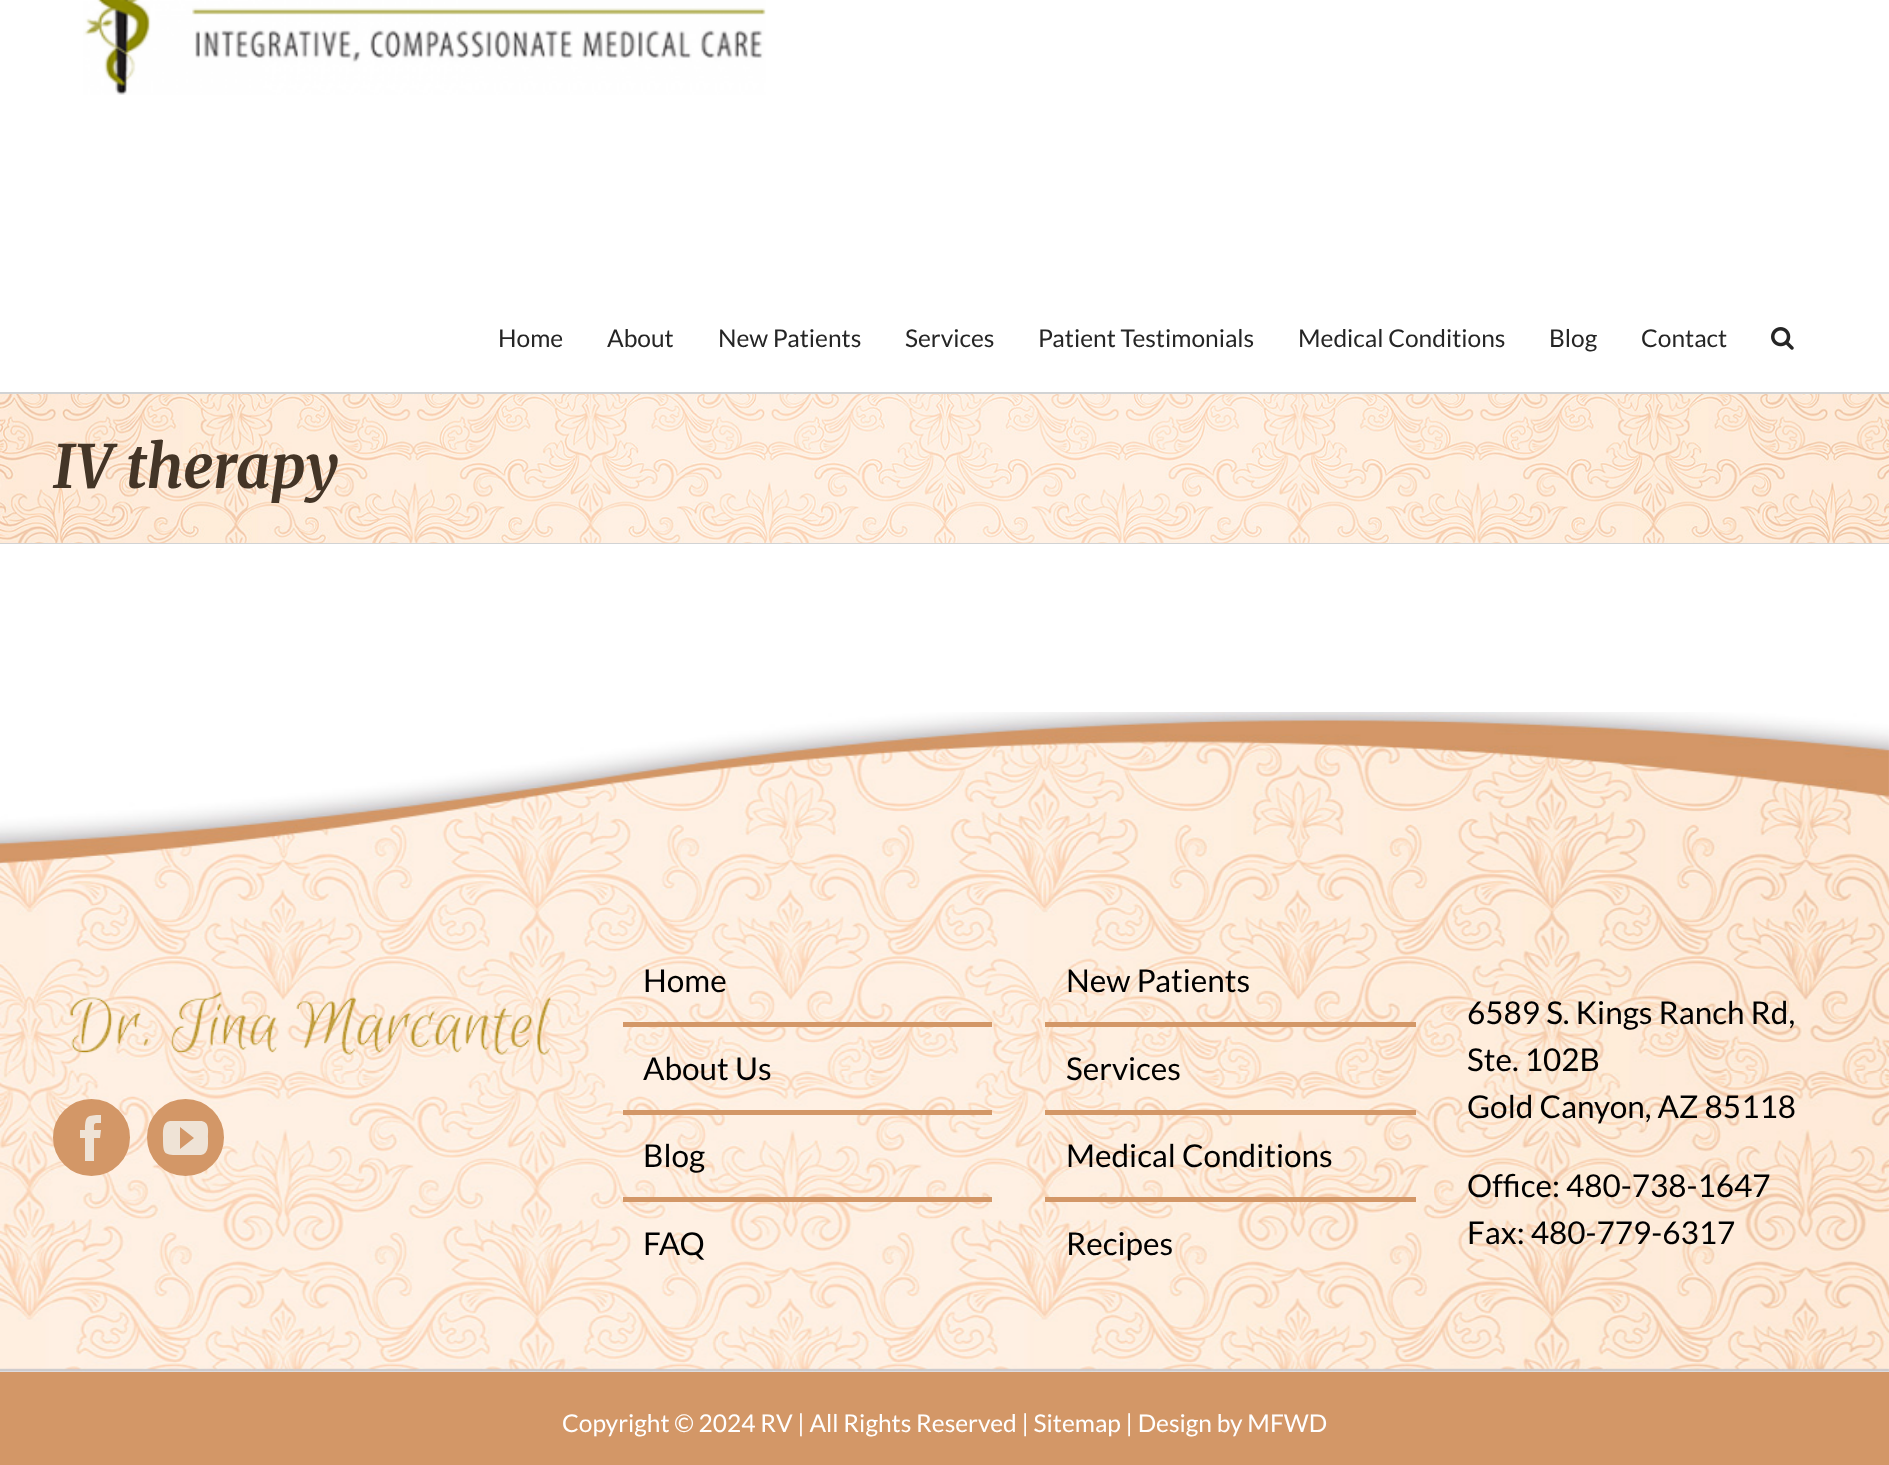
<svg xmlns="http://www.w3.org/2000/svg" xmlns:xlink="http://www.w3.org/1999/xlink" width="1889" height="1465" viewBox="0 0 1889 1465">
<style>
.cls-1{font:24.5px Lato;fill:#252525}
.cls-2{font:italic 300 59.5px Merriweather;fill:#443527}
.cls-3{font:31.5px Lato;fill:#000000}
.cls-4{font:24.5px Lato;fill:#ffffff}
</style>
<rect width="100%" height="100%" fill="#ffffff"/>
<image xlink:href="image0.png" x="83" y="0" width="683" height="95"/>
<image xlink:href="image1.png" x="1771" y="327" width="23" height="23"/>
<image xlink:href="image2.png" x="0" y="394" width="1889" height="149"/>
<rect fill="#d2d3d4" x="0" y="392" width="1889" height="2"/>
<rect fill="#d2d3d4" x="0" y="543" width="1889" height="1"/>
<image xlink:href="image3.png" x="0" y="712" width="1889" height="660"/>
<image xlink:href="image4.png" x="70" y="992" width="481" height="63"/>
<circle fill="#d39767" stroke="#d39767" stroke-width="2" cx="91.5" cy="1137.5" r="37.5"/>
<path fill="#efe3d6" d="M94 1161H85V1138H80V1130H85C85 1116 87 1115 101 1115V1123C93 1123 94 1123 94 1130H101L100 1138H94Z"/>
<circle fill="#d39767" stroke="#d39767" stroke-width="2" cx="185.5" cy="1137.5" r="37.5"/>
<path fill="#efe3d6" d="M200 1121H170C162 1122 163 1132 163 1138C163 1155 164 1155 181 1155H201C209 1154 208 1144 208 1138C208 1131 210 1121 200 1121ZM180 1149V1127L194 1138Z"/>
<rect fill="#d39767" x="623" y="1022" width="369" height="5"/>
<rect fill="#d39767" x="623" y="1110" width="369" height="5"/>
<rect fill="#d39767" x="623" y="1197" width="369" height="5"/>
<rect fill="#d39767" x="1045" y="1022" width="371" height="5"/>
<rect fill="#d39767" x="1045" y="1110" width="371" height="5"/>
<rect fill="#d39767" x="1045" y="1197" width="371" height="5"/>
<rect fill="#d39767" x="0" y="1372" width="1889" height="93"/>
<text class="cls-1" x="498" y="347">Home</text>
<text class="cls-1" x="607" y="347">About</text>
<text class="cls-1" x="718" y="347">New Patients</text>
<text class="cls-1" x="905" y="347">Services</text>
<text class="cls-1" x="1038" y="347">Patient Testimonials</text>
<text class="cls-1" x="1298" y="347">Medical Conditions</text>
<text class="cls-1" x="1549" y="347">Blog</text>
<text class="cls-1" x="1641" y="347">Contact</text>
<text class="cls-2" x="53" y="488">IV therapy</text>
<text class="cls-3" x="643" y="992">Home</text>
<text class="cls-3" x="643" y="1080">About Us</text>
<text class="cls-3" x="643" y="1167">Blog</text>
<text class="cls-3" x="643" y="1255">FAQ</text>
<text class="cls-3" x="1066" y="992">New Patients</text>
<text class="cls-3" x="1066" y="1080">Services</text>
<text class="cls-3" x="1066" y="1167">Medical Conditions</text>
<text class="cls-3" x="1066" y="1255">Recipes</text>
<text class="cls-3"><tspan x="1467" y="1024">6589 S. Kings Ranch Rd,</tspan><tspan x="1467" y="1071">Ste. 102B</tspan><tspan x="1467" y="1118">Gold Canyon, AZ 85118</tspan></text>
<text class="cls-3"><tspan x="1467" y="1197">Office: 480-738-1647</tspan><tspan x="1467" y="1244">Fax: 480-779-6317</tspan></text>
<text class="cls-4" x="562" y="1432">Copyright © 2024 RV | All Rights Reserved | Sitemap | Design by MFWD</text>
</svg>
